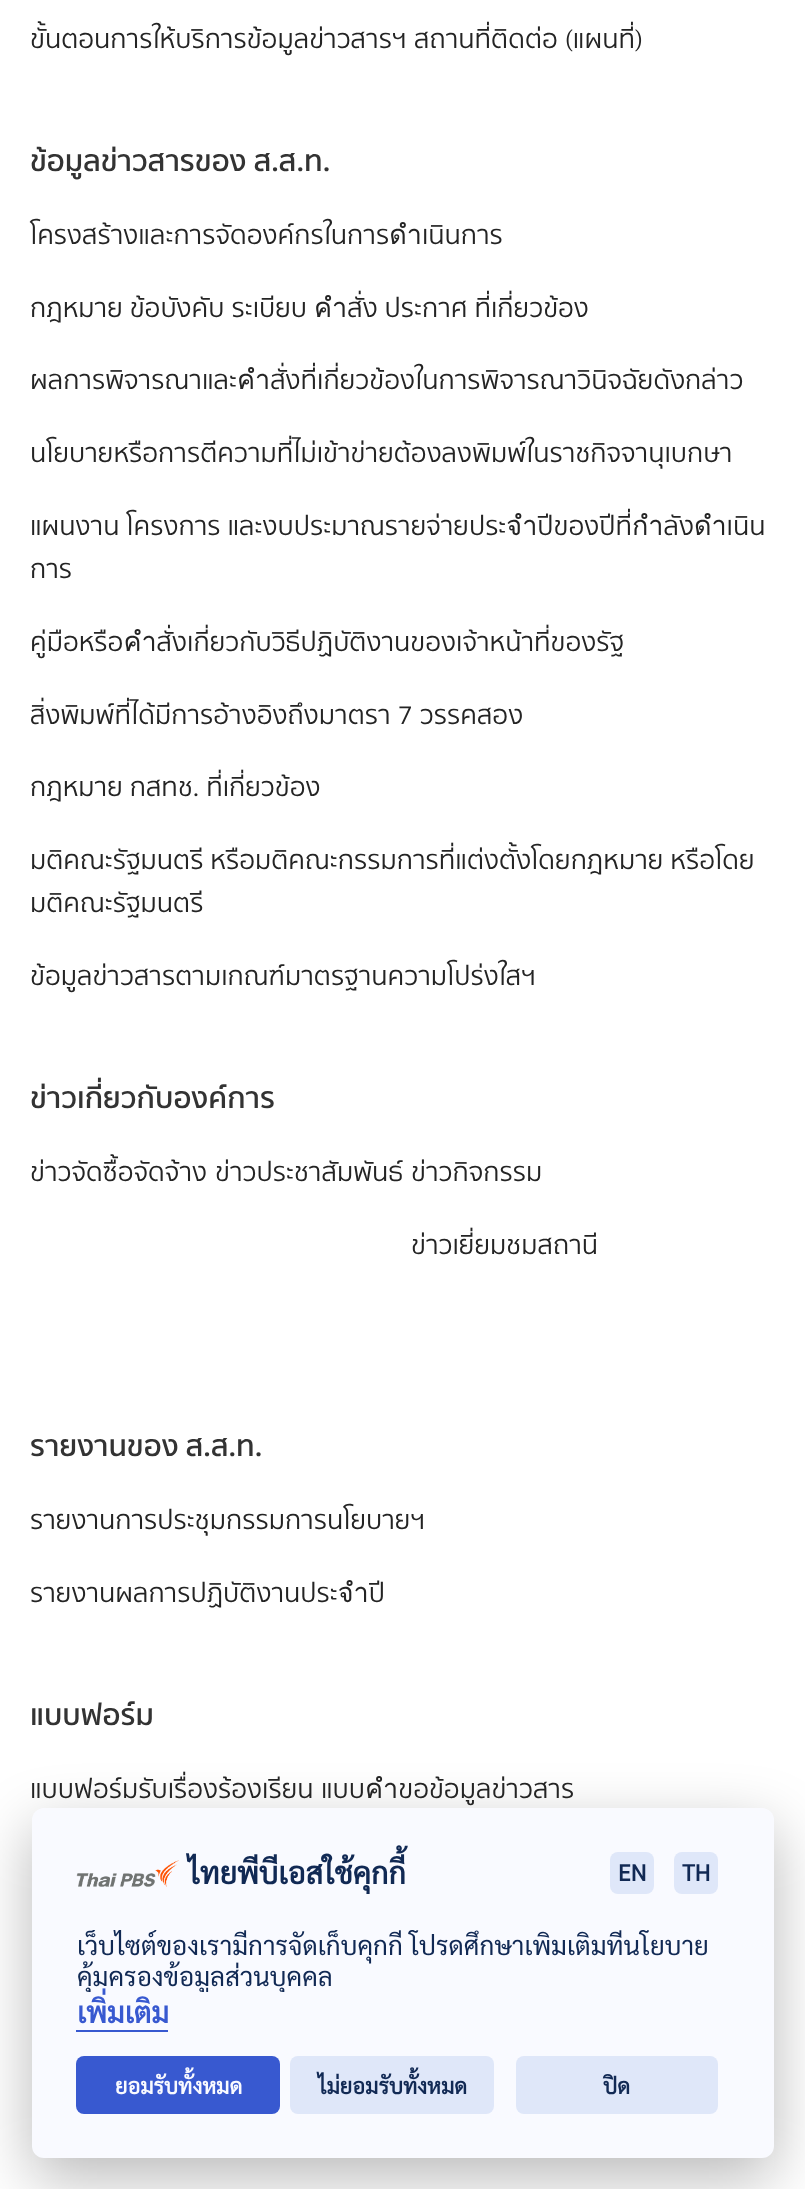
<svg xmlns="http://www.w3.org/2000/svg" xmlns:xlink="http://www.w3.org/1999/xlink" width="805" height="2189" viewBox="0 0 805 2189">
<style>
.cls-1{font:27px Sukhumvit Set;fill:#242424}
.cls-2{font:600 30px Sukhumvit Set;fill:#333333}
.cls-3{font:bold 30.25px Sarabun;fill:#112954}
.cls-4{font:bold 23px Sarabun;fill:#112954}
.cls-5{font:25.9px Sarabun;fill:#112954}
.cls-6{font:bold 29px Sarabun;fill:#3859d0}
.cls-7{font:bold 21.75px Sarabun;fill:#f9faff}
.cls-8{font:bold 21.75px Sarabun;fill:#112954}
</style>
<defs>
<clipPath id="clip1"><rect x="76" y="1930" width="654" height="62"/></clipPath>
</defs>
<rect width="100%" height="100%" fill="#ffffff"/>
<rect fill="#020203" fill-opacity="0.28" filter="blur(30px)" x="32" y="1828" width="742" height="350" rx="12"/>
<rect fill="#f9faff" x="32" y="1808" width="742" height="350" rx="12"/>
<image xlink:href="image0.png" x="76" y="1860" width="103" height="27"/>
<rect fill="#dfe7f9" x="610" y="1852" width="44" height="42" rx="8"/>
<rect fill="#dfe7f9" x="674" y="1852" width="44" height="42" rx="8"/>
<rect fill="#3859d0" x="76" y="2030" width="92" height="2"/>
<rect fill="#3859d0" x="76" y="2056" width="204" height="58" rx="8"/>
<rect fill="#dfe7f9" x="290" y="2056" width="204" height="58" rx="8"/>
<rect fill="#dfe7f9" x="516" y="2056" width="202" height="58" rx="8"/>
<text class="cls-1" x="30" y="48">ขั้นตอนการให้บริการข้อมูลข่าวสารฯ</text>
<text class="cls-1" x="414" y="48">สถานที่ติดต่อ (แผนที่)</text>
<text class="cls-2" x="30" y="171">ข้อมูลข่าวสารของ ส.ส.ท.</text>
<text class="cls-1" x="30" y="244">โครงสร้างและการจัดองค์กรในการดำเนินการ</text>
<text class="cls-1" x="30" y="317">กฎหมาย ข้อบังคับ ระเบียบ คำสั่ง ประกาศ ที่เกี่ยวข้อง</text>
<text class="cls-1" x="30" y="389">ผลการพิจารณาและคำสั่งที่เกี่ยวข้องในการพิจารณาวินิจฉัยดังกล่าว</text>
<text class="cls-1" x="30" y="462">นโยบายหรือการตีความที่ไม่เข้าข่ายต้องลงพิมพ์ในราชกิจจานุเบกษา</text>
<text class="cls-1"><tspan x="30" y="535">แผนงาน โครงการ และงบประมาณรายจ่ายประจำปีของปีที่กำลังดำเนิน</tspan><tspan x="30" y="578">การ</tspan></text>
<text class="cls-1" x="30" y="651">คู่มือหรือคำสั่งเกี่ยวกับวิธีปฏิบัติงานของเจ้าหน้าที่ของรัฐ</text>
<text class="cls-1" x="30" y="724">สิ่งพิมพ์ที่ได้มีการอ้างอิงถึงมาตรา 7 วรรคสอง</text>
<text class="cls-1" x="30" y="796">กฎหมาย กสทช. ที่เกี่ยวข้อง</text>
<text class="cls-1"><tspan x="30" y="869">มติคณะรัฐมนตรี หรือมติคณะกรรมการที่แต่งตั้งโดยกฎหมาย หรือโดย</tspan><tspan x="30" y="912">มติคณะรัฐมนตรี</tspan></text>
<text class="cls-1" x="30" y="985">ข้อมูลข่าวสารตามเกณฑ์มาตรฐานความโปร่งใสฯ</text>
<text class="cls-2" x="30" y="1108">ข่าวเกี่ยวกับองค์การ</text>
<text class="cls-1" x="30" y="1181">ข่าวจัดซื้อจัดจ้าง</text>
<text class="cls-1" x="215" y="1181">ข่าวประชาสัมพันธ์</text>
<text class="cls-1" x="411" y="1181">ข่าวกิจกรรม</text>
<text class="cls-1" x="411" y="1254">ข่าวเยี่ยมชมสถานี</text>
<text class="cls-2" x="30" y="1456">รายงานของ ส.ส.ท.</text>
<text class="cls-1" x="30" y="1529">รายงานการประชุมกรรมการนโยบายฯ</text>
<text class="cls-1" x="30" y="1602">รายงานผลการปฏิบัติงานประจำปี</text>
<text class="cls-2" x="30" y="1725">แบบฟอร์ม</text>
<text class="cls-1" x="30" y="1798">แบบฟอร์มรับเรื่องร้องเรียน</text>
<text class="cls-1" x="321" y="1798">แบบคำขอข้อมูลข่าวสาร</text>
<text class="cls-3" x="188" y="1884">ไทยพีบีเอสใช้คุกกี้</text>
<text class="cls-4" x="618" y="1881">EN</text>
<text class="cls-4" x="682" y="1881">TH</text>
<g clip-path="url(#clip1)">
<text class="cls-5"><tspan x="77" y="1955">เว็บไซต์ของเรามีการจัดเก็บคุกกี้ โปรดศึกษาเพิ่มเติมที่นโยบาย</tspan><tspan x="77" y="1986">คุ้มครองข้อมูลส่วนบุคคล</tspan></text>
</g>
<text class="cls-6" x="77" y="2023">เพิ่มเติม</text>
<text class="cls-7" x="115" y="2094">ยอมรับทั้งหมด</text>
<text class="cls-8" x="318" y="2094">ไม่ยอมรับทั้งหมด</text>
<text class="cls-8" x="603" y="2094">ปิด</text>
</svg>
